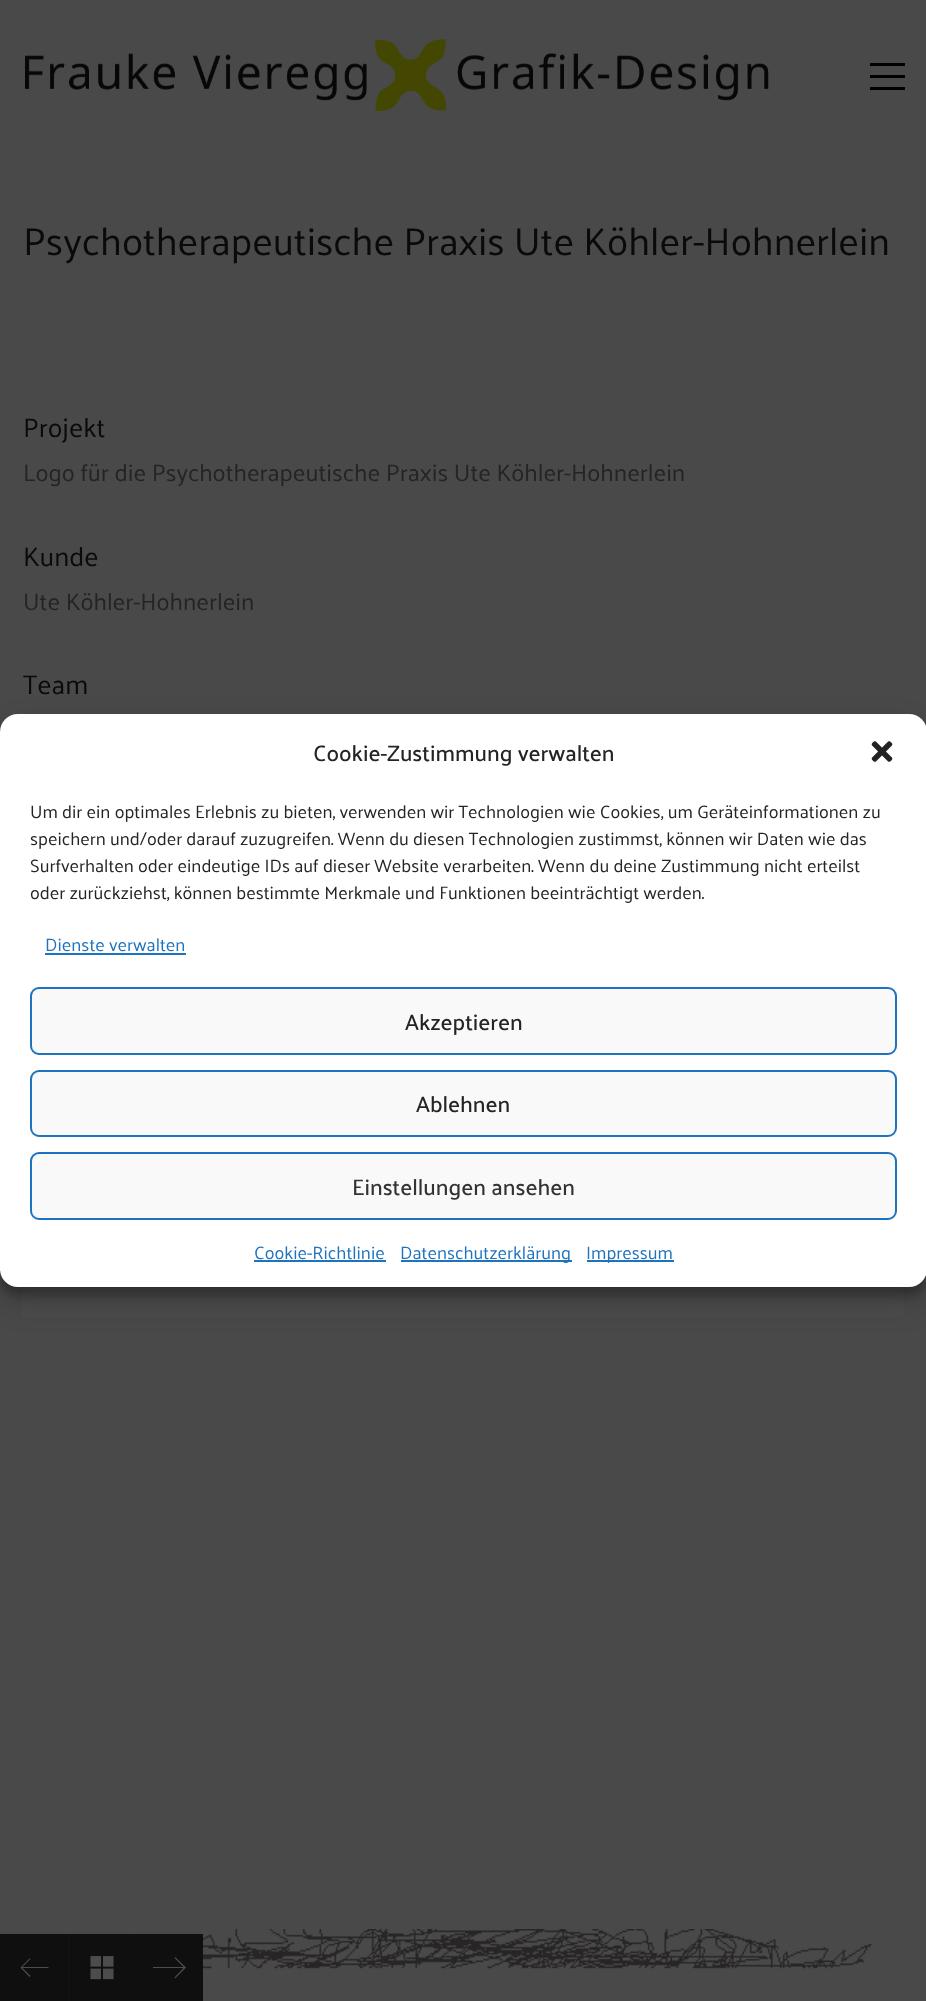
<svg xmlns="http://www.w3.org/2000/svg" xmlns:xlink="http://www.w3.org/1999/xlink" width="926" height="2001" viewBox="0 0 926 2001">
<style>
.cls-1{font:39px Palanquin;fill:#0a0a0a}
.cls-2{font:27px Palanquin;fill:#0a0a0a}
.cls-3{font:24px Palanquin;fill:#242424}
.cls-4{font:500 22.5px Palanquin;fill:#242424}
.cls-5{font:18px Palanquin;fill:#242424}
.cls-6{font:18px Palanquin;fill:#1e73be}
.cls-7{font:500 22.5px Palanquin;fill:#333333}
</style>
<rect width="100%" height="100%" fill="#494949"/>
<image xlink:href="image0.png" x="25" y="39" width="744" height="72"/>
<rect fill="#000000" x="870" y="63" width="35" height="3"/>
<rect fill="#000000" x="870" y="75" width="35" height="3"/>
<rect fill="#000000" x="870" y="87" width="35" height="3"/>
<image xlink:href="image1.png" x="22" y="1287" width="882" height="30"/>
<rect fill="#0f0f0f" x="0" y="1934" width="68" height="67"/>
<path fill="#4d4d4d" d="M48.5 1967H22.5L30.5 1959L29.5 1958.5L20.5 1967.5L29.5 1977L30.5 1976L22.5 1968H48.5Z"/>
<rect fill="#0f0f0f" x="70" y="1934" width="64" height="67"/>
<rect fill="#111111" x="134" y="1934" width="1" height="67"/>
<rect fill="#111111" x="68" y="1934" width="2" height="67"/>
<image xlink:href="image2.png" x="90" y="1956" width="24" height="24"/>
<rect fill="#0f0f0f" x="135" y="1934" width="68" height="67"/>
<path fill="#4d4d4d" d="M175 1957L174.5 1958L183.5 1967H153V1968H183.5L174.5 1977.5L175 1978.5L186 1967.5Z"/>
<rect fill="#000000" fill-opacity="0.23" filter="blur(4.5px)" x="0" y="723" width="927" height="573" rx="18"/>
<rect fill="#000000" fill-opacity="0.19" filter="blur(15px)" x="0" y="729" width="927" height="573" rx="18"/>
<rect fill="#ffffff" x="0" y="714" width="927" height="573" rx="18"/>
<image xlink:href="image3.png" x="871" y="741" width="22" height="21"/>
<rect fill="#1e73be" x="45" y="953" width="141" height="2"/>
<rect fill="#f9f9f9" stroke="#1e73be" stroke-width="2" x="31" y="988" width="865" height="66" rx="8"/>
<rect fill="#f9f9f9" stroke="#1e73be" stroke-width="2" x="31" y="1071" width="865" height="65" rx="8"/>
<rect fill="#f9f9f9" stroke="#1e73be" stroke-width="2" x="31" y="1153" width="865" height="66" rx="8"/>
<rect fill="#1e73be" x="254" y="1260" width="132" height="2"/>
<rect fill="#1e73be" x="401" y="1260" width="171" height="2"/>
<rect fill="#1e73be" x="587" y="1260" width="87" height="2"/>
<image xlink:href="image4.png" x="203" y="1929" width="669" height="40"/>
<text class="cls-1" x="23" y="255">Psychotherapeutische Praxis Ute Köhler-Hohnerlein</text>
<text class="cls-2" x="23" y="437">Projekt</text>
<text class="cls-3" x="23" y="481">Logo für die Psychotherapeutische Praxis Ute Köhler-Hohnerlein</text>
<text class="cls-2" x="23" y="566">Kunde</text>
<text class="cls-3" x="23" y="610">Ute Köhler-Hohnerlein</text>
<text class="cls-2" x="23" y="694">Team</text>
<text class="cls-4" x="313" y="761">Cookie-Zustimmung verwalten</text>
<text class="cls-5"><tspan x="30" y="818">Um dir ein optimales Erlebnis zu bieten, verwenden wir Technologien wie Cookies, um Geräteinformationen zu</tspan><tspan x="30" y="845">speichern und/oder darauf zuzugreifen. Wenn du diesen Technologien zustimmst, können wir Daten wie das</tspan><tspan x="30" y="872">Surfverhalten oder eindeutige IDs auf dieser Website verarbeiten. Wenn du deine Zustimmung nicht erteilst</tspan><tspan x="30" y="899">oder zurückziehst, können bestimmte Merkmale und Funktionen beeinträchtigt werden.</tspan></text>
<text class="cls-6" x="45" y="951">Dienste verwalten</text>
<text class="cls-4" x="405" y="1030">Akzeptieren</text>
<text class="cls-4" x="416" y="1112">Ablehnen</text>
<text class="cls-7" x="352" y="1195">Einstellungen ansehen</text>
<text class="cls-6" x="254" y="1259">Cookie-Richtlinie</text>
<text class="cls-6" x="400" y="1259">Datenschutzerklärung</text>
<text class="cls-6" x="586" y="1259">Impressum</text>
</svg>
